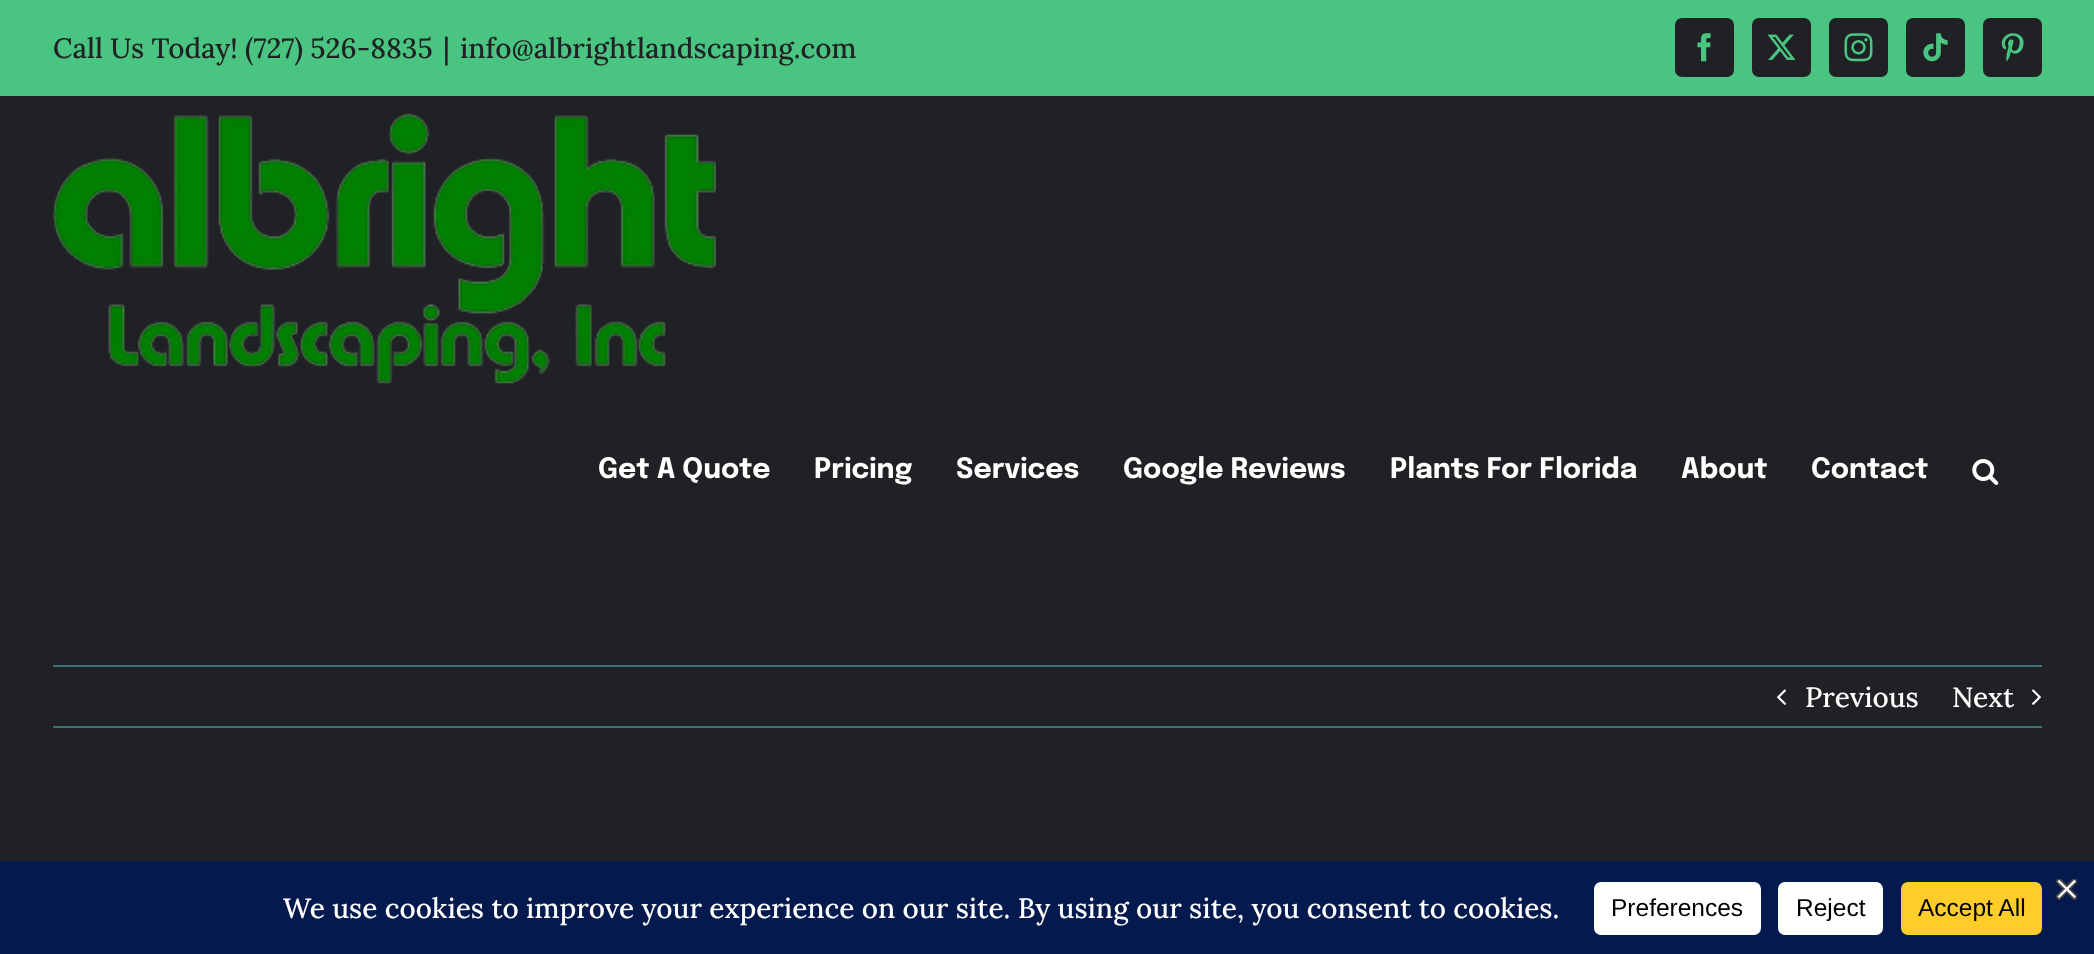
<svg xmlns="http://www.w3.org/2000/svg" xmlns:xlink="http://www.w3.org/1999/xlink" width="2094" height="954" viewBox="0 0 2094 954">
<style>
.cls-1{font:500 28px Lora;fill:#1f2124}
.cls-2{font:bold 28px Epilogue;fill:#ffffff}
.cls-3{font:500 28px Lora;fill:#ffffff}
.cls-4{font:24.5px Liberation Sans;fill:#000000}
</style>
<rect width="100%" height="100%" fill="#1f2124"/>
<rect fill="#4ac481" x="0" y="0" width="2094" height="96"/>
<rect fill="#1f2124" stroke="#1f2124" stroke-width="2" x="1676" y="19" width="57" height="57" rx="6"/>
<image xlink:href="image0.png" x="1697" y="33" width="14" height="29"/>
<rect fill="#1f2124" stroke="#1f2124" stroke-width="2" x="1753" y="19" width="57" height="57" rx="6"/>
<image xlink:href="image1.png" x="1767" y="34" width="29" height="26"/>
<rect fill="#1f2124" stroke="#1f2124" stroke-width="2" x="1830" y="19" width="57" height="57" rx="6"/>
<image xlink:href="image2.png" x="1844" y="33" width="29" height="29"/>
<rect fill="#1f2124" stroke="#1f2124" stroke-width="2" x="1907" y="19" width="57" height="57" rx="6"/>
<image xlink:href="image3.png" x="1923" y="33" width="25" height="29"/>
<rect fill="#1f2124" stroke="#1f2124" stroke-width="2" x="1984" y="19" width="57" height="57" rx="6"/>
<image xlink:href="image4.png" x="2001" y="33" width="23" height="29"/>
<image xlink:href="image5.png" x="52" y="113" width="664" height="271"/>
<image xlink:href="image6.png" x="1972" y="459" width="27" height="26"/>
<rect fill="#407075" x="53" y="665" width="1989" height="2"/>
<rect fill="#407075" x="53" y="726" width="1989" height="2"/>
<image xlink:href="image7.png" x="1777" y="689" width="9" height="16"/>
<image xlink:href="image8.png" x="2032" y="689" width="9" height="16"/>
<rect fill="#04194e" x="0" y="861" width="2094" height="93"/>
<image xlink:href="image9.png" x="2056" y="879" width="21" height="21"/>
<rect fill="#ffffff" x="1594" y="882" width="167" height="53" rx="7"/>
<rect fill="#ffffff" x="1778" y="882" width="105" height="53" rx="7"/>
<rect fill="#ffcd2a" x="1901" y="882" width="141" height="53" rx="7"/>
<text class="cls-1" x="53" y="58">Call Us Today! (727) 526-8835</text>
<text class="cls-1" x="443" y="58">|</text>
<text class="cls-1" x="460" y="58">info@albrightlandscaping.com</text>
<text class="cls-2" x="598" y="478">Get A Quote</text>
<text class="cls-2" x="814" y="478">Pricing</text>
<text class="cls-2" x="956" y="478">Services</text>
<text class="cls-2" x="1123" y="478">Google Reviews</text>
<text class="cls-2" x="1390" y="478">Plants For Florida</text>
<text class="cls-2" x="1681" y="478">About</text>
<text class="cls-2" x="1811" y="478">Contact</text>
<text class="cls-3" x="1805" y="707">Previous</text>
<text class="cls-3" x="1952" y="707">Next</text>
<text class="cls-3" x="283" y="918">We use cookies to improve your experience on our site. By using our site, you consent to cookies.</text>
<text class="cls-4" x="1611" y="916">Preferences</text>
<text class="cls-4" x="1796" y="916">Reject</text>
<text class="cls-4" x="1918" y="916">Accept All</text>
</svg>
